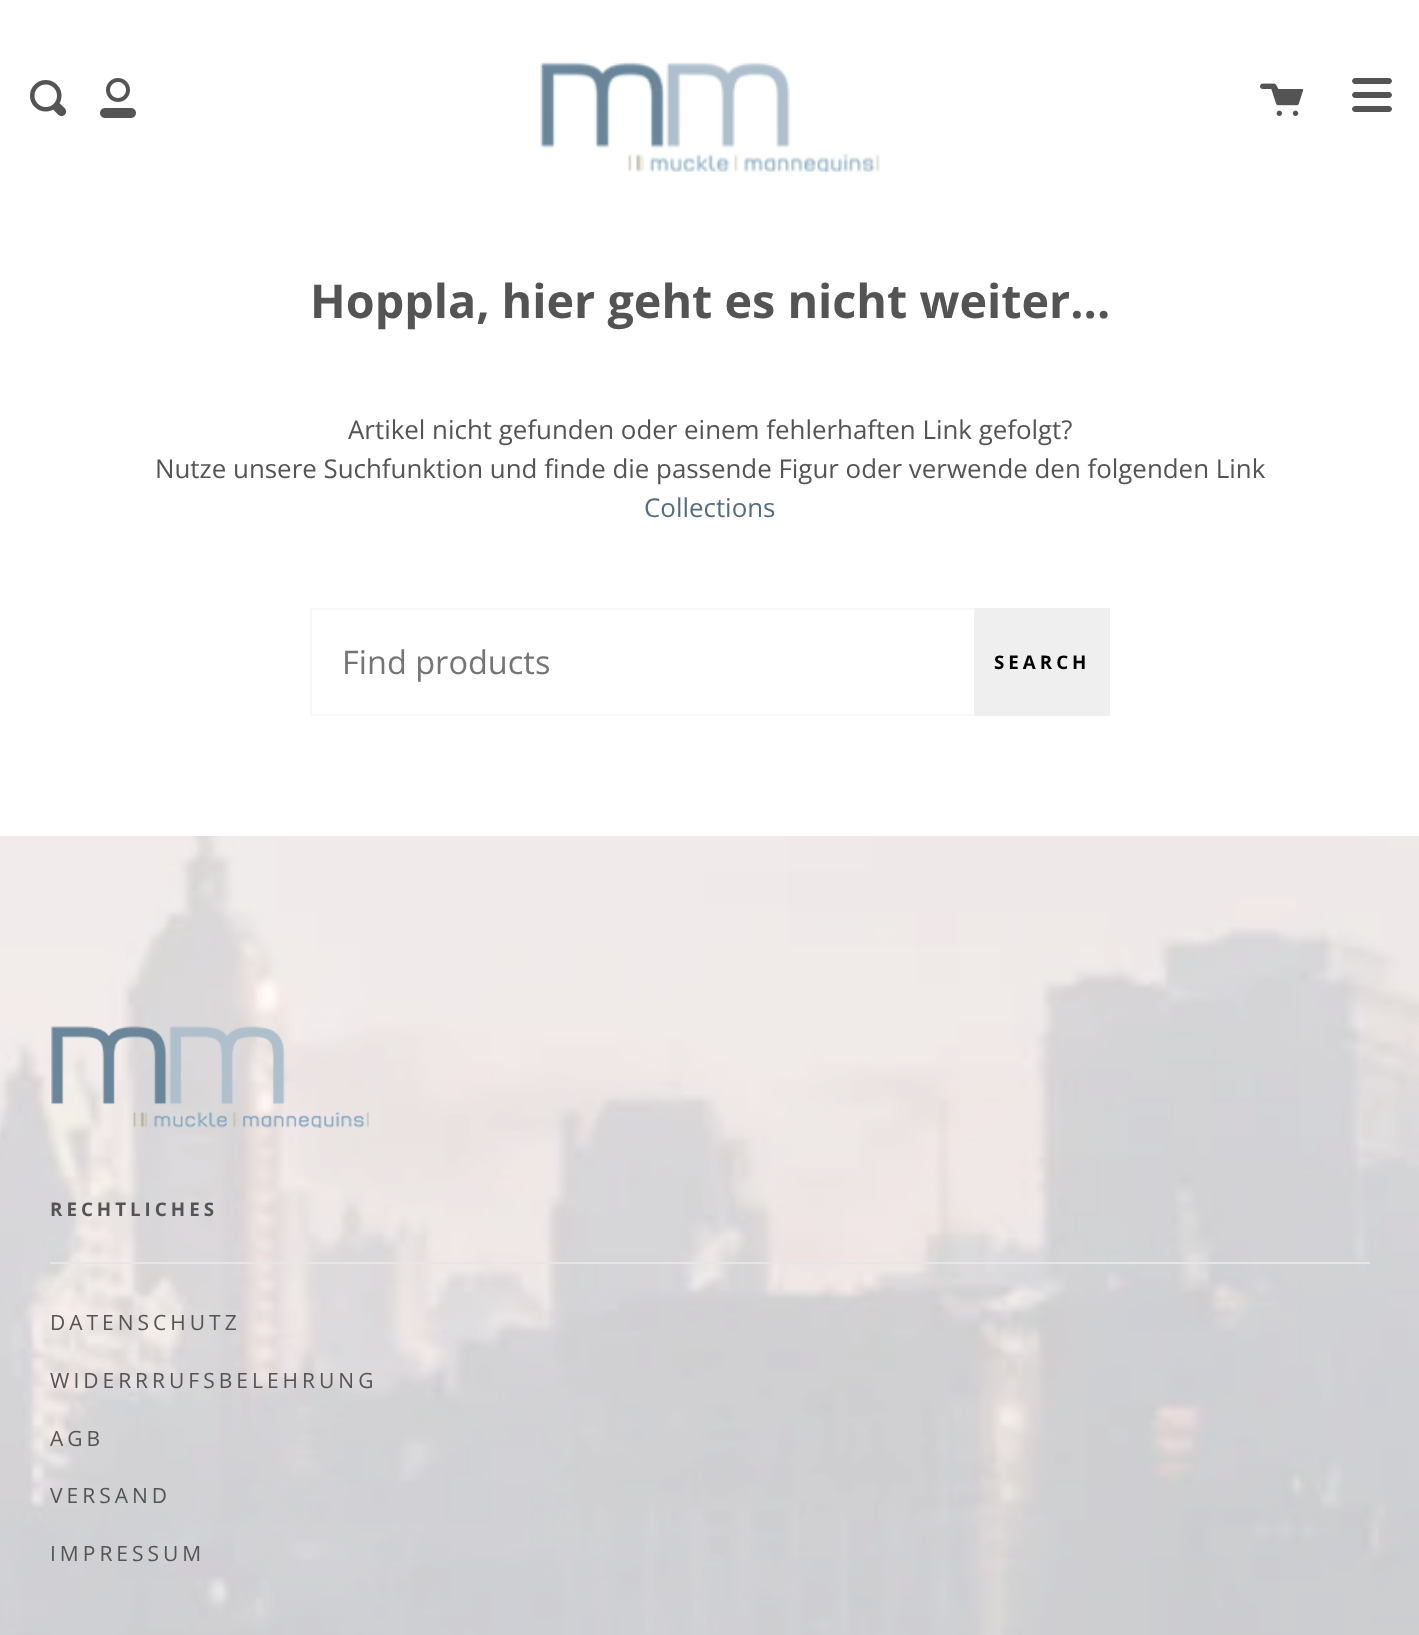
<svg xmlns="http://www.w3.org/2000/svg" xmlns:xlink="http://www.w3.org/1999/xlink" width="1419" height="1635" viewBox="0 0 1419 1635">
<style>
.cls-1{font:bold 46.7px Open Sans;fill:#545454}
.cls-2{font:25.9px Open Sans;fill:#545454}
.cls-3{font:25.9px Open Sans;fill:#556c7e}
.cls-4{font:32.5px Open Sans;fill:#757575}
.cls-5{font:bold 18.75px Open Sans;letter-spacing:4px;fill:#000000}
.cls-6{font:bold 18.75px Open Sans;letter-spacing:4px;fill:#545454}
.cls-7{font:21px Open Sans;letter-spacing:4px;fill:#545454}
</style>
<rect width="100%" height="100%" fill="#ffffff"/>
<image xlink:href="image0.png" x="540" y="61" width="340" height="111"/>
<image xlink:href="image1.png" x="30" y="80" width="37" height="37"/>
<image xlink:href="image2.png" x="100" y="78" width="36" height="40"/>
<image xlink:href="image3.png" x="1260" y="83" width="44" height="33"/>
<path fill="#545454" d="M1355 78H1386V84H1355C1353.5 84 1352 82.5 1352 81C1352 79.5 1353.5 78 1355 78Z"/>
<path fill="#545454" d="M1358 78H1389C1390.5 78 1392 79.5 1392 81C1392 82.5 1390.5 84 1389 84H1358Z"/>
<path fill="#545454" d="M1355 92H1386V98H1355C1353.5 98 1352 96.5 1352 95C1352 93.5 1353.5 92 1355 92Z"/>
<path fill="#545454" d="M1358 92H1389C1390.5 92 1392 93.5 1392 95C1392 96.5 1390.5 98 1389 98H1358Z"/>
<path fill="#545454" d="M1355 106H1386V112H1355C1353.5 112 1352 110.5 1352 109C1352 107.5 1353.5 106 1355 106Z"/>
<path fill="#545454" d="M1358 106H1389C1390.5 106 1392 107.5 1392 109C1392 110.5 1390.5 112 1389 112H1358Z"/>
<rect fill="none" stroke="#f7f7f7" stroke-width="2" x="311" y="609" width="798" height="106"/>
<rect fill="#efefef" x="974" y="608" width="136" height="108"/>
<image xlink:href="image4.png" x="0" y="836" width="1419" height="799"/>
<image xlink:href="image5.png" x="51" y="1026" width="318" height="102"/>
<rect fill="#e6e6e6" x="50" y="1262" width="1320" height="2"/>
<text class="cls-1" x="310" y="318">Hoppla, hier geht es nicht weiter...</text>
<text class="cls-2" x="348" y="439">Artikel nicht gefunden oder einem fehlerhaften Link gefolgt?</text>
<text class="cls-2" x="155" y="478">Nutze unsere Suchfunktion und finde die passende Figur oder verwende den folgenden Link</text>
<text class="cls-3" x="644" y="517">Collections</text>
<text class="cls-4" x="342" y="674">Find products</text>
<text class="cls-5" x="994" y="669">SEARCH</text>
<text class="cls-6" x="50" y="1216">RECHTLICHES</text>
<text class="cls-7" x="50" y="1330">DATENSCHUTZ</text>
<text class="cls-7" x="50" y="1388">WIDERRRUFSBELEHRUNG</text>
<text class="cls-7" x="50" y="1446">AGB</text>
<text class="cls-7" x="50" y="1503">VERSAND</text>
<text class="cls-7" x="50" y="1561">IMPRESSUM</text>
</svg>
